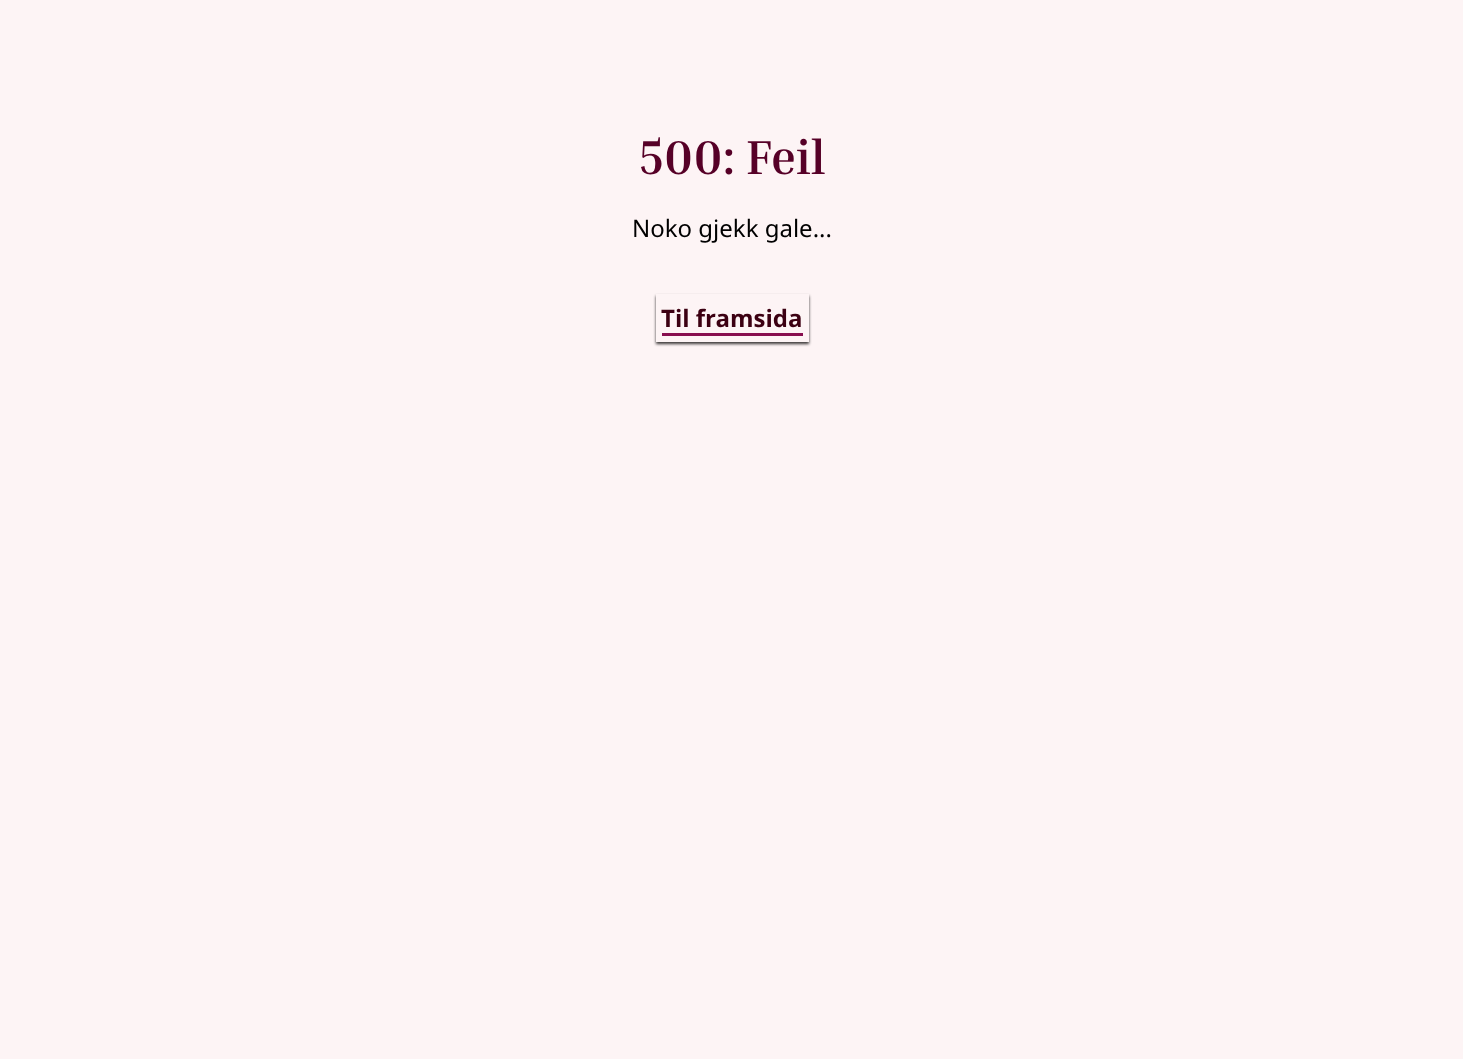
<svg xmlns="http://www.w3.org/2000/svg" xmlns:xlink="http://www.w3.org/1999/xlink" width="1463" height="1059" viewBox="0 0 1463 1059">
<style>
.cls-1{font:bold 48px Inria Serif;fill:#560027}
.cls-2{font:24px Noto Sans;fill:#000000}
.cls-3{font:bold 24px Noto Sans;fill:#3c0012}
</style>
<defs>
<clipPath id="clip1"><path d="M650 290H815V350H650ZM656 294H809V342H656Z" clip-rule="evenodd"/></clipPath>
</defs>
<rect width="100%" height="100%" fill="#fdf4f5"/>
<g clip-path="url(#clip1)">
<rect fill="#373434" filter="blur(1.5px)" x="656" y="296" width="153" height="48"/>
</g>
<rect fill="#880e4f" x="662" y="333" width="141" height="3"/>
<text class="cls-1" x="639" y="174">500: Feil</text>
<text class="cls-2" x="632" y="237">Noko gjekk gale...</text>
<text class="cls-3" x="661" y="327">Til framsida</text>
</svg>
